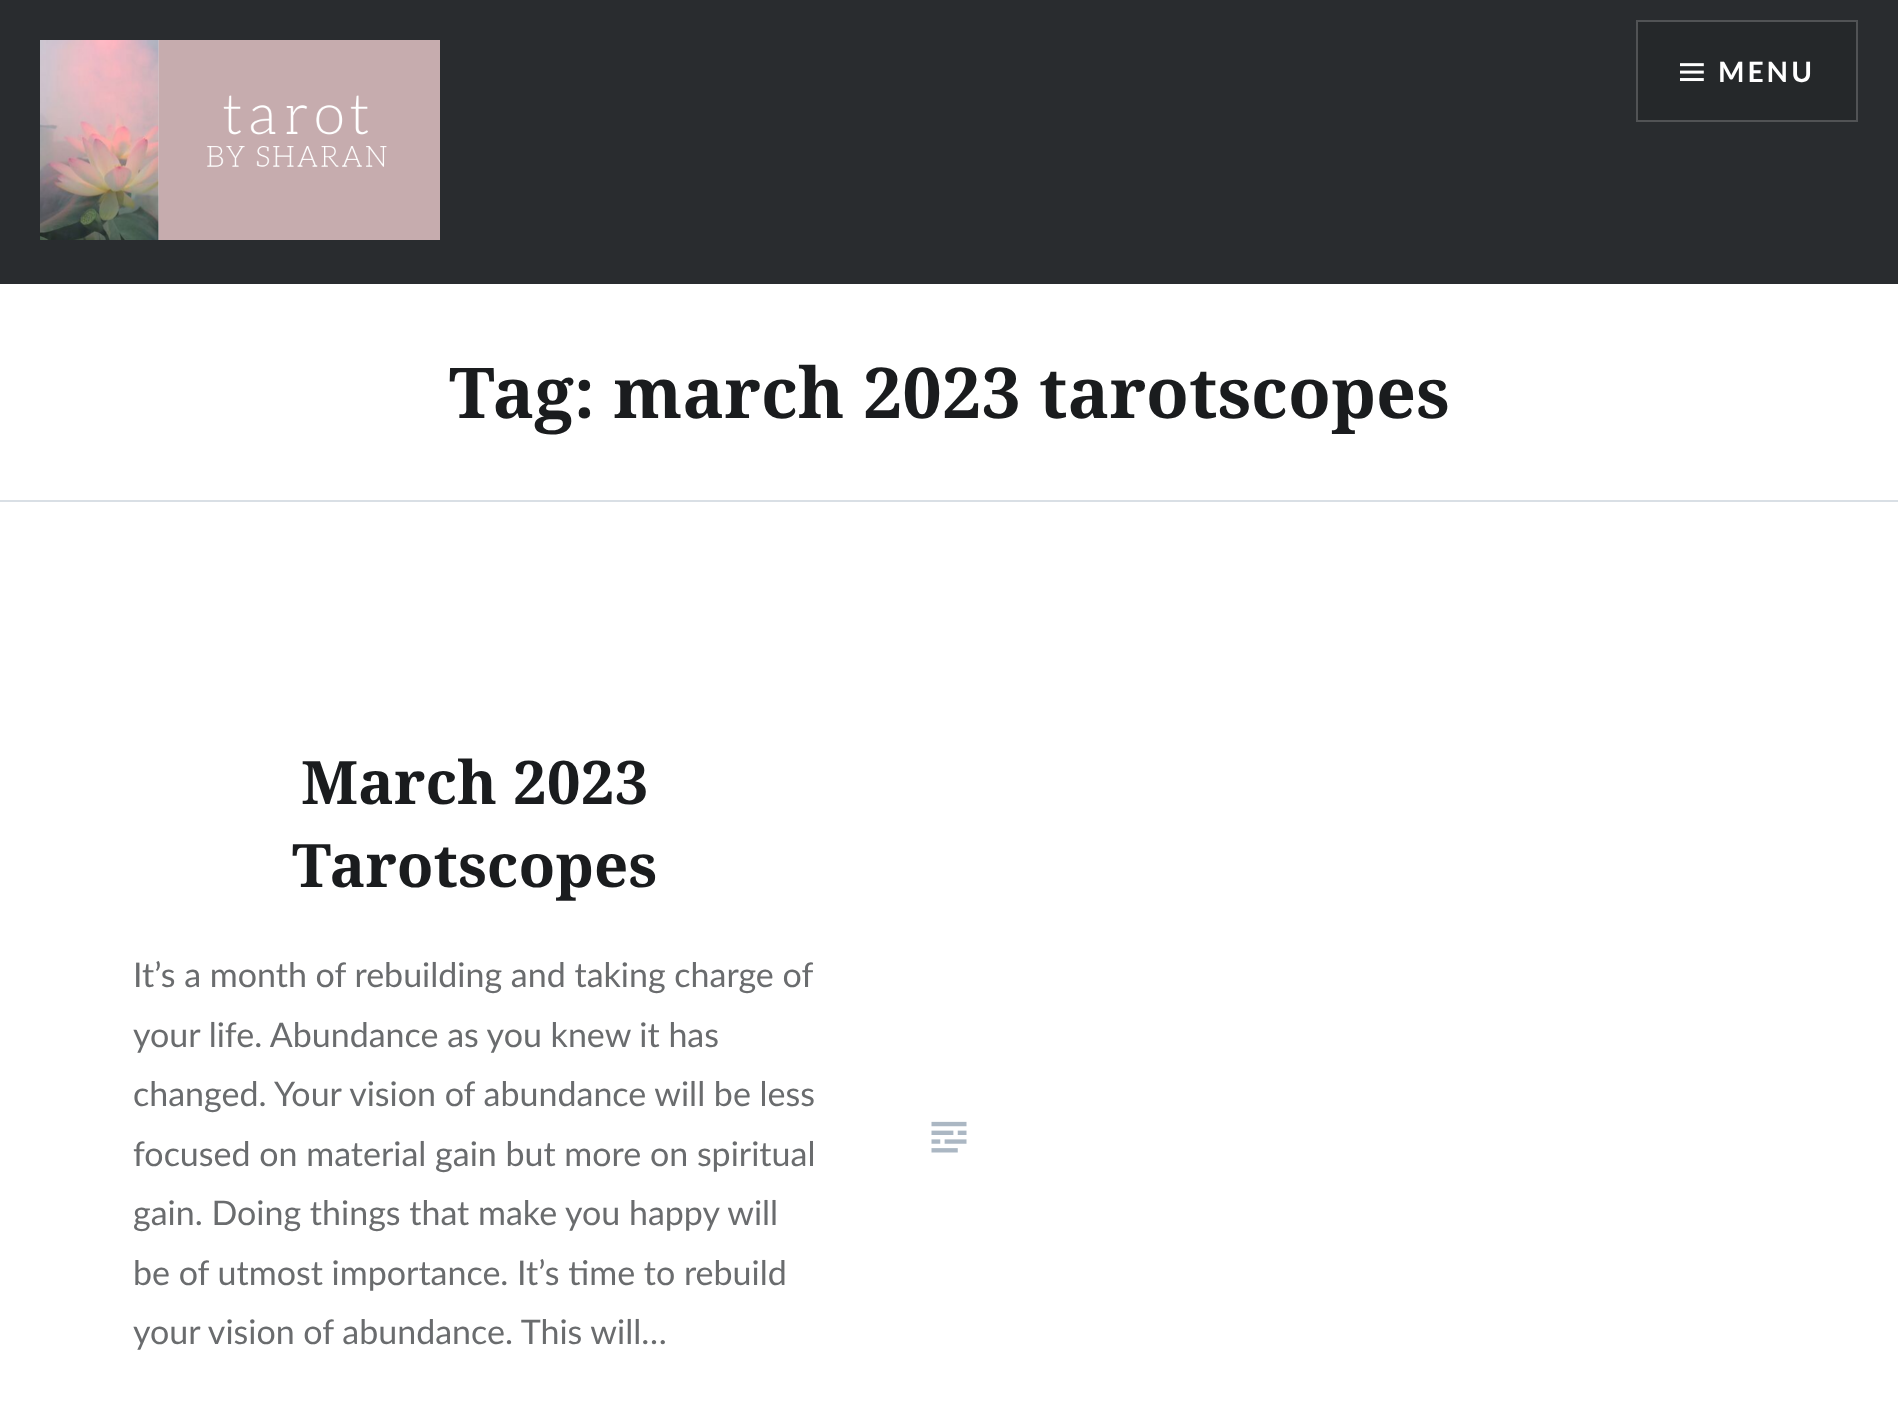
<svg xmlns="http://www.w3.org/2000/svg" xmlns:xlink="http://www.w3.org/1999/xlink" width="1898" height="1417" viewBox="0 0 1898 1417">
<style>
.cls-1{font:bold 28px Lato;letter-spacing:3px;fill:#ffffff}
.cls-2{font:bold 70px Noto Serif;fill:#1a1c1e}
.cls-3{font:bold 60px Noto Serif;fill:#1a1c1e}
.cls-4{font:34px Lato;fill:#6a6c6e}
</style>
<rect width="100%" height="100%" fill="#ffffff"/>
<rect fill="#292c2f" x="0" y="0" width="1898" height="284"/>
<image xlink:href="image0.png" x="40" y="40" width="400" height="200"/>
<rect fill="#25282a" stroke="#515355" stroke-width="2" x="1637" y="21" width="220" height="100"/>
<image xlink:href="image1.png" x="1680" y="63" width="24" height="19"/>
<rect fill="#d9dfe5" x="0" y="500" width="1898" height="2"/>
<image xlink:href="image2.png" x="931" y="1121" width="36" height="32"/>
<text class="cls-1" x="1718" y="82">MENU</text>
<text class="cls-2" x="449" y="418">Tag: march 2023 tarotscopes</text>
<text class="cls-3" x="301" y="804">March 2023</text>
<text class="cls-3" x="292" y="887">Tarotscopes</text>
<text class="cls-4"><tspan x="133" y="987">It’s a month of rebuilding and taking charge of</tspan><tspan x="133" y="1047">your life. Abundance as you knew it has</tspan><tspan x="133" y="1106">changed. Your vision of abundance will be less</tspan><tspan x="133" y="1166">focused on material gain but more on spiritual</tspan><tspan x="133" y="1225">gain. Doing things that make you happy will</tspan><tspan x="133" y="1285">be of utmost importance. It’s time to rebuild</tspan><tspan x="133" y="1344">your vision of abundance. This will…</tspan></text>
</svg>
